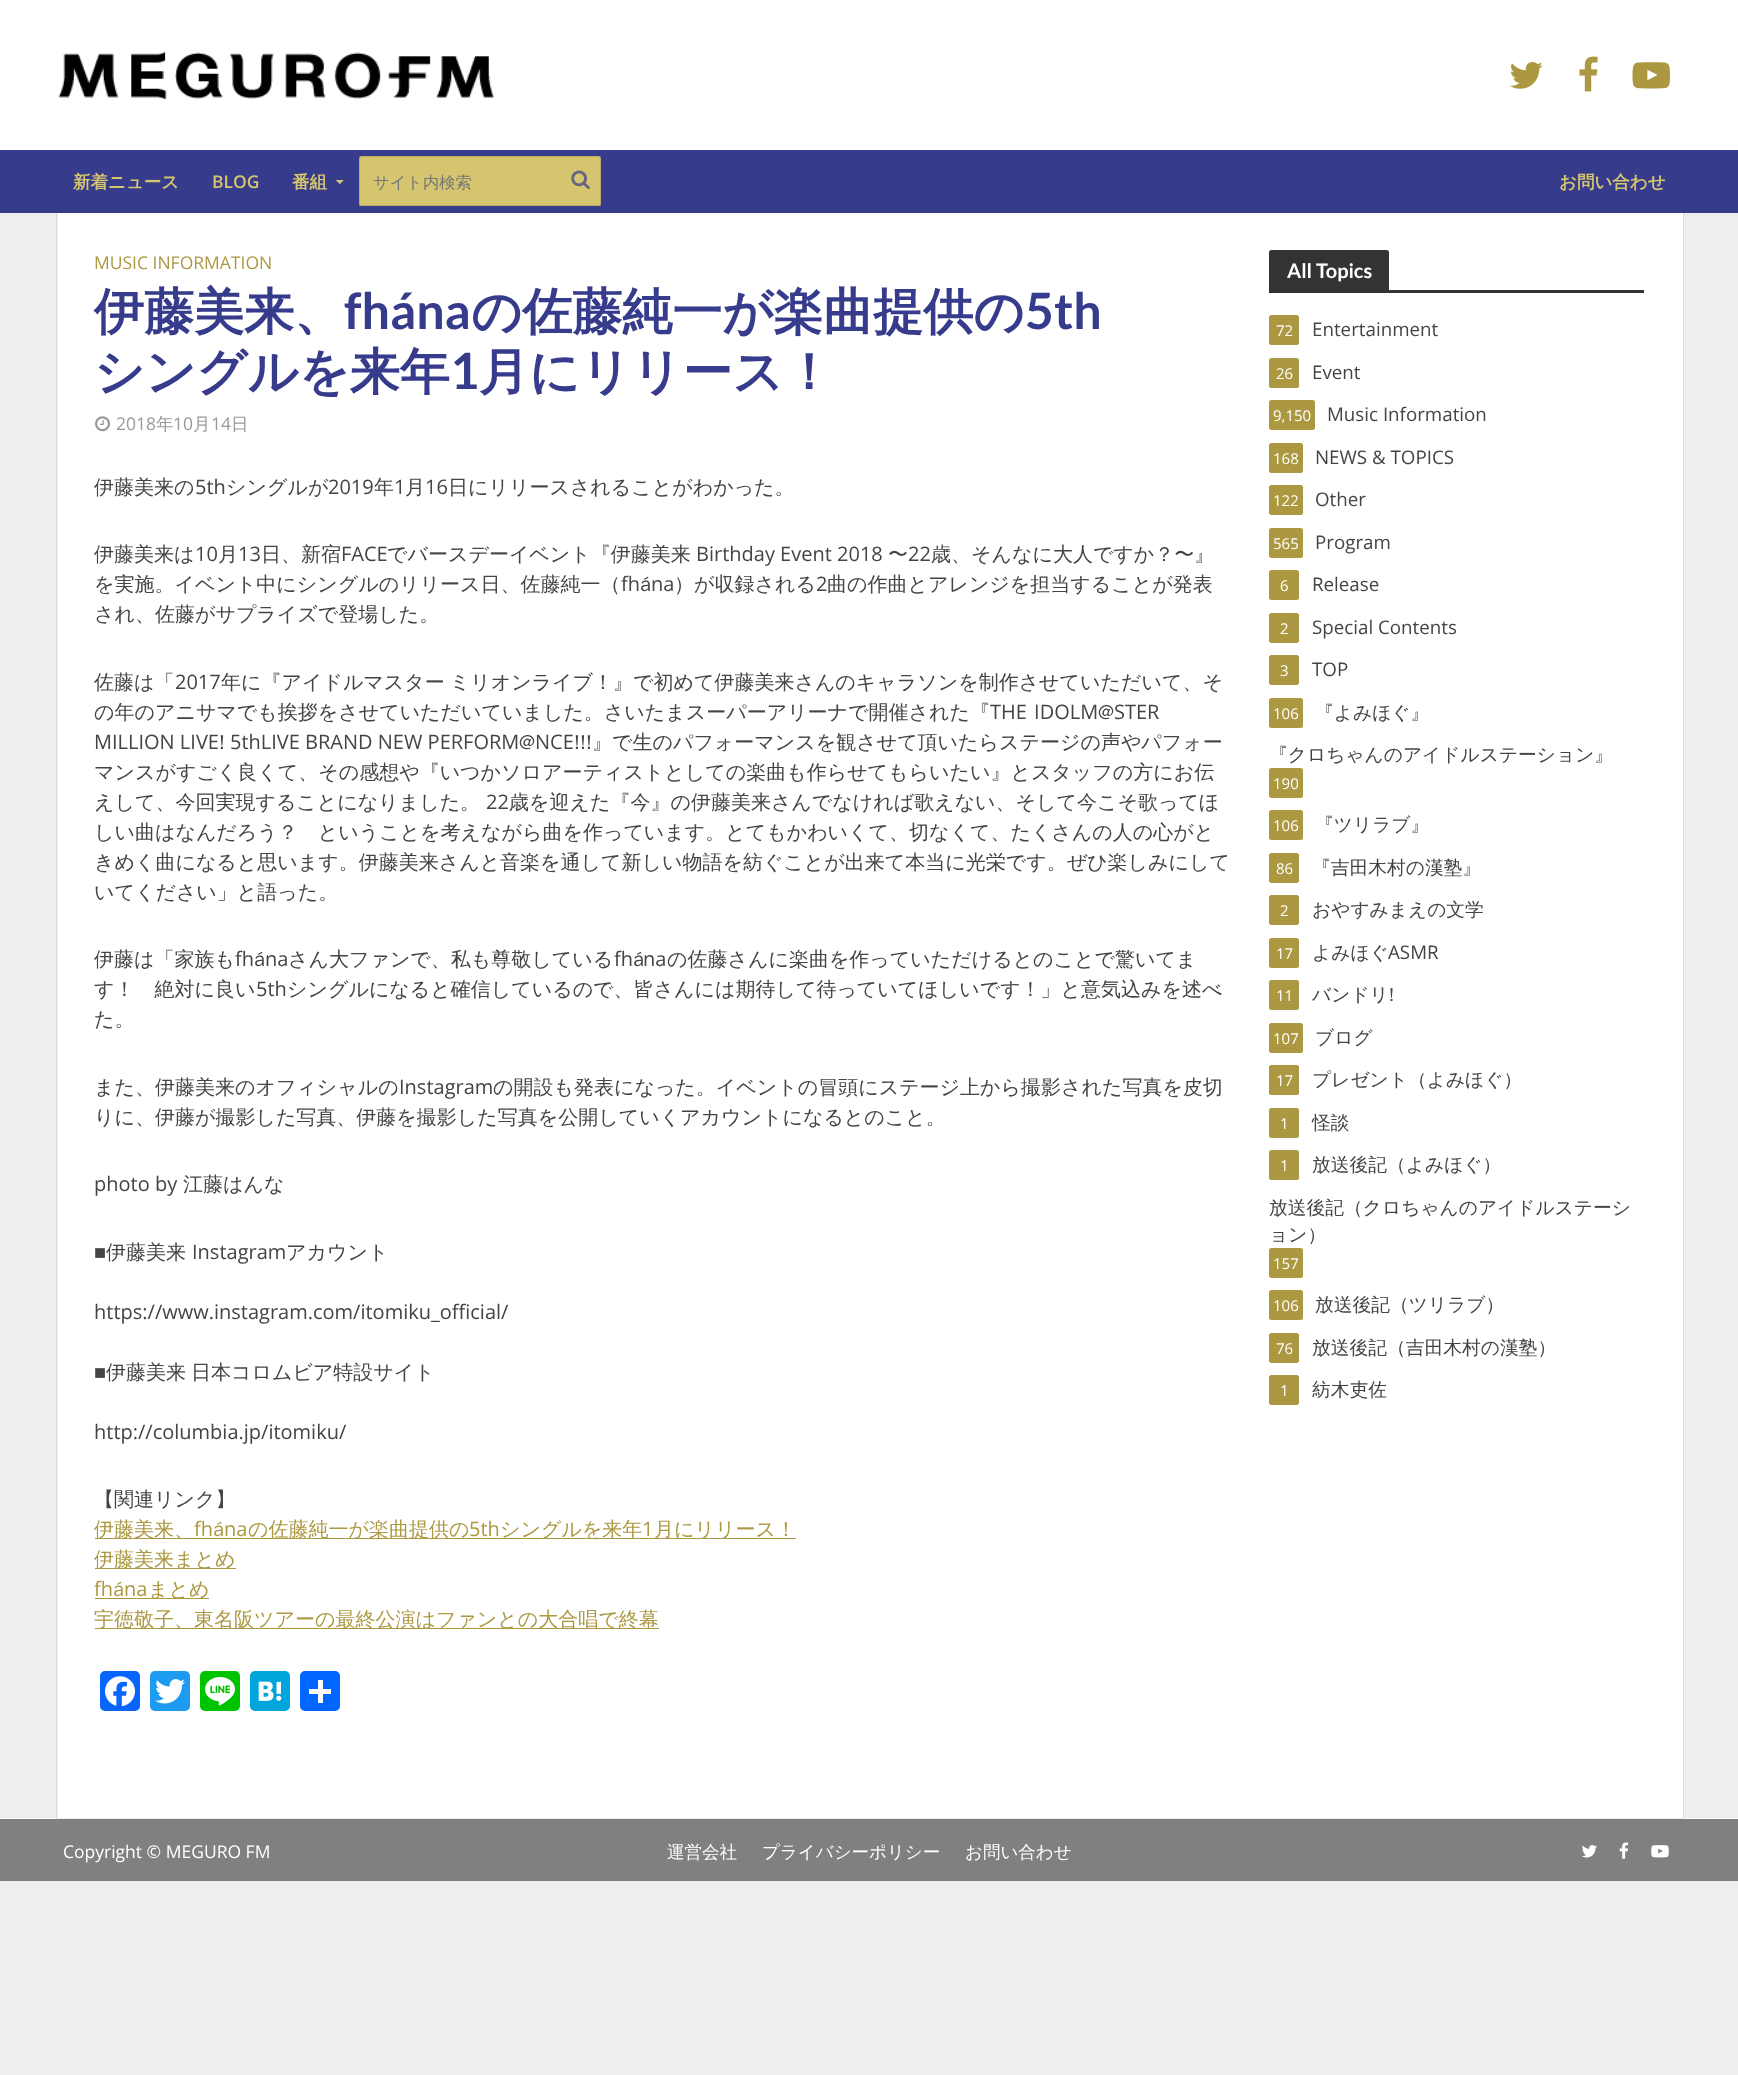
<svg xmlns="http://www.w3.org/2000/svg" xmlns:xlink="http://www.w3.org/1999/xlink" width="1738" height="2075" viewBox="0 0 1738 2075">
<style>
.cls-1{font:bold 17.5px WenQuanYi Zen Hei;fill:#d5c56f}
.cls-2{font:600 17.5px Open Sans;fill:#d5c56f}
.cls-3{font:500 16.25px WenQuanYi Zen Hei;fill:#757575}
.cls-4{font:17.5px Open Sans;fill:#ac9841}
.cls-5{font:bold 50px WenQuanYi Zen Hei;fill:#363b8b}
.cls-6{font:bold 50px Lato;fill:#363b8b}
.cls-7{font:17.5px Open Sans;fill:#999999}
.cls-8{font:500 17.5px WenQuanYi Zen Hei;fill:#999999}
.cls-9{font:500 20px WenQuanYi Zen Hei;fill:#444444}
.cls-10{font:20px Open Sans;fill:#444444}
.cls-11{font:20px Liberation Serif;fill:#444444}
.cls-12{font:500 20px WenQuanYi Zen Hei;fill:#ac9841}
.cls-13{font:20px Open Sans;fill:#ac9841}
.cls-14{font:bold 20px Lato;fill:#ffffff}
.cls-15{font:15px Open Sans;fill:#ffffff}
.cls-16{font:18.75px Open Sans;fill:#444444}
.cls-17{font:500 18.75px WenQuanYi Zen Hei;fill:#444444}
.cls-18{font:17.5px Open Sans;fill:#ffffff}
.cls-19{font:500 17.5px WenQuanYi Zen Hei;fill:#ffffff}
</style>
<rect width="100%" height="100%" fill="#eeeeee"/>
<rect fill="#ffffff" x="0" y="0" width="1738" height="150"/>
<image xlink:href="image0.png" x="58" y="51" width="436" height="49"/>
<image xlink:href="image1.png" x="1509" y="62" width="34" height="27"/>
<image xlink:href="image2.png" x="1579" y="56" width="19" height="36"/>
<image xlink:href="image3.png" x="1632" y="62" width="38" height="27"/>
<rect fill="#ffffff" x="0" y="1818" width="1738" height="1"/>
<rect fill="none" stroke="#444444" stroke-opacity="0.1" x="56.5" y="211.5" width="1627" height="1607"/>
<rect fill="#363b8b" x="0" y="150" width="1738" height="63"/>
<image xlink:href="image4.png" x="336" y="180" width="8" height="4"/>
<rect fill="#d5c56f" x="359" y="156" width="242" height="50" rx="2.5"/>
<rect fill="none" stroke="#444444" stroke-opacity="0.2" x="359.5" y="156.5" width="241" height="49" rx="2"/>
<image xlink:href="image5.png" x="571" y="170" width="19" height="20"/>
<rect fill="#ffffff" x="58" y="213" width="1625" height="1605"/>
<image xlink:href="image6.png" x="95" y="416" width="15" height="16"/>
<rect fill="#ac9841" x="95" y="1538" width="701" height="1"/>
<rect fill="#ac9841" x="95" y="1568" width="141" height="1"/>
<rect fill="#ac9841" x="95" y="1598" width="114" height="1"/>
<rect fill="#ac9841" x="95" y="1628" width="564" height="1"/>
<rect fill="#0866ff" x="100" y="1671" width="40" height="40" rx="5"/>
<image xlink:href="image7.png" x="105" y="1676" width="30" height="31"/>
<rect fill="#1d9bf0" x="150" y="1671" width="40" height="40" rx="5"/>
<image xlink:href="image8.png" x="155" y="1679" width="30" height="25"/>
<rect fill="#00c300" x="200" y="1671" width="40" height="40" rx="5"/>
<image xlink:href="image9.png" x="205" y="1677" width="30" height="29"/>
<rect fill="#00a6db" x="250" y="1671" width="40" height="40" rx="5"/>
<image xlink:href="image10.png" x="258" y="1681" width="24" height="20"/>
<rect fill="#0166ff" x="300" y="1671" width="40" height="40" rx="5"/>
<rect fill="#ffffff" x="318" y="1680" width="5" height="23"/>
<rect fill="#ffffff" x="309" y="1689" width="22" height="5"/>
<path fill="#333333" d="M1271.5 250H1386.5C1388 250 1389 251 1389 252.5V290H1269V252.5C1269 251 1270 250 1271.5 250Z"/>
<rect fill="#333333" x="1269" y="290" width="375" height="3"/>
<rect fill="#ac9841" x="1269" y="315" width="30" height="30" rx="2.5"/>
<rect fill="#ac9841" x="1269" y="358" width="30" height="30" rx="2.5"/>
<rect fill="#ac9841" x="1269" y="400" width="46" height="30" rx="2.5"/>
<rect fill="#ac9841" x="1269" y="443" width="34" height="30" rx="2.5"/>
<rect fill="#ac9841" x="1269" y="485" width="34" height="30" rx="2.5"/>
<rect fill="#ac9841" x="1269" y="528" width="34" height="30" rx="2.5"/>
<rect fill="#ac9841" x="1269" y="570" width="30" height="30" rx="2.5"/>
<rect fill="#ac9841" x="1269" y="613" width="30" height="30" rx="2.5"/>
<rect fill="#ac9841" x="1269" y="655" width="30" height="30" rx="2.5"/>
<rect fill="#ac9841" x="1269" y="698" width="34" height="30" rx="2.5"/>
<rect fill="#ac9841" x="1269" y="768" width="34" height="30" rx="2.5"/>
<rect fill="#ac9841" x="1269" y="810" width="34" height="30" rx="2.5"/>
<rect fill="#ac9841" x="1269" y="853" width="30" height="30" rx="2.5"/>
<rect fill="#ac9841" x="1269" y="895" width="30" height="30" rx="2.5"/>
<rect fill="#ac9841" x="1269" y="938" width="30" height="30" rx="2.5"/>
<rect fill="#ac9841" x="1269" y="980" width="30" height="30" rx="2.5"/>
<rect fill="#ac9841" x="1269" y="1023" width="34" height="30" rx="2.5"/>
<rect fill="#ac9841" x="1269" y="1065" width="30" height="30" rx="2.5"/>
<rect fill="#ac9841" x="1269" y="1108" width="30" height="30" rx="2.5"/>
<rect fill="#ac9841" x="1269" y="1150" width="30" height="30" rx="2.5"/>
<rect fill="#ac9841" x="1269" y="1248" width="34" height="30" rx="2.5"/>
<rect fill="#ac9841" x="1269" y="1290" width="34" height="30" rx="2.5"/>
<rect fill="#ac9841" x="1269" y="1333" width="30" height="30" rx="2.5"/>
<rect fill="#ac9841" x="1269" y="1375" width="30" height="30" rx="2.5"/>
<rect fill="#808080" x="0" y="1819" width="1738" height="62"/>
<image xlink:href="image11.png" x="1582" y="1845" width="15" height="13"/>
<image xlink:href="image12.png" x="1619" y="1842" width="10" height="17"/>
<image xlink:href="image13.png" x="1651" y="1845" width="18" height="13"/>
<text class="cls-1" x="73" y="188">新着ニュース</text>
<text class="cls-2" x="212" y="188">BLOG</text>
<text class="cls-1" x="292" y="188">番組</text>
<text class="cls-3" x="373" y="188">サイト内検索</text>
<text class="cls-1" x="1559" y="188">お問い合わせ</text>
<text class="cls-4" x="94" y="269">MUSIC INFORMATION</text>
<text class="cls-5" x="94" y="329">伊藤美来、</text>
<text class="cls-6" x="344" y="329">fhána</text>
<text class="cls-5" x="471" y="329">の佐藤純一が楽曲提供の</text>
<text class="cls-6" x="1025" y="329">5th</text>
<text class="cls-5" x="94" y="389">シングルを来年</text>
<text class="cls-6" x="450" y="389">1</text>
<text class="cls-5" x="479" y="389">月にリリース！</text>
<text class="cls-7" x="116" y="430">2018</text>
<text class="cls-8" x="156" y="430">年</text>
<text class="cls-7" x="173" y="430">10</text>
<text class="cls-8" x="193" y="430">月</text>
<text class="cls-7" x="211" y="430">14</text>
<text class="cls-8" x="231" y="430">日</text>
<text class="cls-9" x="94" y="494">伊藤美来の</text>
<text class="cls-10" x="195" y="494">5th</text>
<text class="cls-9" x="226" y="494">シングルが</text>
<text class="cls-10" x="328" y="494">2019</text>
<text class="cls-9" x="374" y="494">年</text>
<text class="cls-10" x="394" y="494">1</text>
<text class="cls-9" x="405" y="494">月</text>
<text class="cls-10" x="425" y="494">16</text>
<text class="cls-9" x="448" y="494">日にリリースされることがわかった。</text>
<text class="cls-9" x="94" y="561">伊藤美来は</text>
<text class="cls-10" x="195" y="561">10</text>
<text class="cls-9" x="218" y="561">月</text>
<text class="cls-10" x="238" y="561">13</text>
<text class="cls-9" x="261" y="561">日、新宿</text>
<text class="cls-10" x="341" y="561">FACE</text>
<text class="cls-9" x="387" y="561">でバースデーイベント『伊藤美来</text>
<text class="cls-10" x="696" y="561">Birthday Event 2018</text>
<text class="cls-9" x="888" y="561">〜</text>
<text class="cls-10" x="908" y="561">22</text>
<text class="cls-9" x="931" y="561">歳、そんなに大人ですか？〜』</text>
<text class="cls-9" x="94" y="591">を実施。イベント中にシングルのリリース日、佐藤純一（</text>
<text class="cls-10" x="621" y="591">fh</text>
<text class="cls-9" x="640" y="591">á</text>
<text class="cls-10" x="651" y="591">na</text>
<text class="cls-9" x="674" y="591">）が収録される</text>
<text class="cls-10" x="816" y="591">2</text>
<text class="cls-9" x="827" y="591">曲の作曲とアレンジを担当することが発表</text>
<text class="cls-9" x="94" y="621">され、佐藤がサプライズで登場した。</text>
<text class="cls-9" x="94" y="689">佐藤は「</text>
<text class="cls-10" x="175" y="689">2017</text>
<text class="cls-9" x="221" y="689" word-spacing="-1">年に『アイドルマスター ミリオンライブ！』で初めて伊藤美来さんのキャラソンを制作させていただいて、そ</text>
<text class="cls-9" x="94" y="719">の年のアニサマでも挨拶をさせていただいていました。さいたまスーパーアリーナで開催された『</text>
<text class="cls-10" x="990" y="719" word-spacing="2">THE IDOLM</text>
<text class="cls-9" x="1098" y="719">@</text>
<text class="cls-10" x="1114" y="719">STER</text>
<text class="cls-10" x="94" y="749">MILLION LIVE</text>
<text class="cls-9" x="219" y="749">!</text>
<text class="cls-10" x="230" y="749">5thLIVE BRAND NEW PERFORM</text>
<text class="cls-9" x="519" y="749">@</text>
<text class="cls-10" x="535" y="749">NCE</text>
<text class="cls-9" x="574" y="749">!!!』で生のパフォーマンスを観させて頂いたらステージの声やパフォー</text>
<text class="cls-9"><tspan x="94" y="779">マンスがすごく良くて、その感想や『いつかソロアーティストとしての楽曲も作らせてもらいたい』とスタッフの方にお伝</tspan><tspan x="94" y="809">えして、今回実現することになりました。</tspan></text>
<text class="cls-10" x="486" y="809">22</text>
<text class="cls-9" x="509" y="809">歳を迎えた『今』の伊藤美来さんでなければ歌えない、そして今こそ歌ってほ</text>
<text class="cls-9"><tspan x="94" y="839">しい曲はなんだろう？　ということを考えながら曲を作っています。とてもかわいくて、切なくて、たくさんの人の心がと</tspan><tspan x="94" y="869">きめく曲になると思います。伊藤美来さんと音楽を通して新しい物語を紡ぐことが出来て本当に光栄です。ぜひ楽しみにして</tspan><tspan x="94" y="899">いてください」と語った。</tspan></text>
<text class="cls-9" x="94" y="966">伊藤は「家族も</text>
<text class="cls-10" x="235" y="966">fh</text>
<text class="cls-9" x="254" y="966">á</text>
<text class="cls-10" x="265" y="966">na</text>
<text class="cls-9" x="288" y="966">さん大ファンで、私も尊敬している</text>
<text class="cls-10" x="614" y="966">fh</text>
<text class="cls-9" x="633" y="966">á</text>
<text class="cls-10" x="643" y="966">na</text>
<text class="cls-9" x="667" y="966">の佐藤さんに楽曲を作っていただけるとのことで驚いてま</text>
<text class="cls-9" x="94" y="996">す！　絶対に良い</text>
<text class="cls-10" x="256" y="996">5th</text>
<text class="cls-9" x="287" y="996">シングルになると確信しているので、皆さんには期待して待っていてほしいです！」と意気込みを述べ</text>
<text class="cls-9" x="94" y="1026">た。</text>
<text class="cls-9" x="94" y="1094">また、伊藤美来のオフィシャルの</text>
<text class="cls-10" x="399" y="1094">Instagram</text>
<text class="cls-9" x="493" y="1094">の開設も発表になった。イベントの冒頭にステージ上から撮影された写真を皮切</text>
<text class="cls-9" x="94" y="1124">りに、伊藤が撮影した写真、伊藤を撮影した写真を公開していくアカウントになるとのこと。</text>
<text class="cls-10" x="94" y="1191">photo by</text>
<text class="cls-9" x="183" y="1191">江藤はんな</text>
<text class="cls-11" x="94" y="1259">■</text>
<text class="cls-9" x="106" y="1259">伊藤美来</text>
<text class="cls-10" x="192" y="1259">Instagram</text>
<text class="cls-9" x="286" y="1259">アカウント</text>
<text class="cls-10" x="94" y="1319">https://www.instagram.com/itomiku_official/</text>
<text class="cls-11" x="94" y="1379">■</text>
<text class="cls-9" x="106" y="1379" word-spacing="-1">伊藤美来 日本コロムビア特設サイト</text>
<text class="cls-10" x="94" y="1439">http://columbia.jp/itomiku/</text>
<text class="cls-9" x="94" y="1506">【関連リンク】</text>
<text class="cls-12" x="94" y="1536">伊藤美来、</text>
<text class="cls-13" x="194" y="1536">fh</text>
<text class="cls-12" x="213" y="1536">á</text>
<text class="cls-13" x="224" y="1536">na</text>
<text class="cls-12" x="248" y="1536">の佐藤純一が楽曲提供の</text>
<text class="cls-13" x="469" y="1536">5th</text>
<text class="cls-12" x="500" y="1536">シングルを来年</text>
<text class="cls-13" x="642" y="1536">1</text>
<text class="cls-12" x="654" y="1536">月にリリース！</text>
<text class="cls-12" x="94" y="1566">伊藤美来まとめ</text>
<text class="cls-13" x="94" y="1596">fh</text>
<text class="cls-12" x="113" y="1596">á</text>
<text class="cls-13" x="124" y="1596">na</text>
<text class="cls-12" x="148" y="1596">まとめ</text>
<text class="cls-12" x="94" y="1626">宇徳敬子、東名阪ツアーの最終公演はファンとの大合唱で終幕</text>
<text class="cls-14" x="1287" y="278">All Topics</text>
<text class="cls-15" x="1276" y="336">72</text>
<text class="cls-16" x="1312" y="336">Entertainment</text>
<text class="cls-15" x="1276" y="379">26</text>
<text class="cls-16" x="1312" y="379">Event</text>
<text class="cls-15" x="1273" y="421">9,150</text>
<text class="cls-16" x="1327" y="421">Music Information</text>
<text class="cls-15" x="1273" y="464">168</text>
<text class="cls-16" x="1315" y="464">NEWS &amp; TOPICS</text>
<text class="cls-15" x="1273" y="506">122</text>
<text class="cls-16" x="1315" y="506">Other</text>
<text class="cls-15" x="1273" y="549">565</text>
<text class="cls-16" x="1315" y="549">Program</text>
<text class="cls-15" x="1280" y="591">6</text>
<text class="cls-16" x="1312" y="591">Release</text>
<text class="cls-15" x="1280" y="634">2</text>
<text class="cls-16" x="1312" y="634">Special Contents</text>
<text class="cls-15" x="1280" y="676">3</text>
<text class="cls-16" x="1312" y="676">TOP</text>
<text class="cls-15" x="1273" y="719">106</text>
<text class="cls-17" x="1315" y="719">『よみほぐ』</text>
<text class="cls-17" x="1269" y="761">『クロちゃんのアイドルステーション』</text>
<text class="cls-15" x="1273" y="789">190</text>
<text class="cls-15" x="1273" y="831">106</text>
<text class="cls-17" x="1315" y="831">『ツリラブ』</text>
<text class="cls-15" x="1276" y="874">86</text>
<text class="cls-17" x="1312" y="874">『吉田木村の漢塾』</text>
<text class="cls-15" x="1280" y="916">2</text>
<text class="cls-17" x="1312" y="916">おやすみまえの文学</text>
<text class="cls-15" x="1276" y="959">17</text>
<text class="cls-17" x="1312" y="959">よみほぐ</text>
<text class="cls-16" x="1388" y="959">ASMR</text>
<text class="cls-15" x="1276" y="1001">11</text>
<text class="cls-17" x="1312" y="1001">バンドリ!</text>
<text class="cls-15" x="1273" y="1044">107</text>
<text class="cls-17" x="1315" y="1044">ブログ</text>
<text class="cls-15" x="1276" y="1086">17</text>
<text class="cls-17" x="1312" y="1086">プレゼント（よみほぐ）</text>
<text class="cls-15" x="1280" y="1129">1</text>
<text class="cls-17" x="1312" y="1129">怪談</text>
<text class="cls-15" x="1280" y="1171">1</text>
<text class="cls-17" x="1312" y="1171">放送後記（よみほぐ）</text>
<text class="cls-17"><tspan x="1269" y="1214">放送後記（クロちゃんのアイドルステーシ</tspan><tspan x="1269" y="1241">ョン）</tspan></text>
<text class="cls-15" x="1273" y="1269">157</text>
<text class="cls-15" x="1273" y="1311">106</text>
<text class="cls-17" x="1315" y="1311">放送後記（ツリラブ）</text>
<text class="cls-15" x="1276" y="1354">76</text>
<text class="cls-17" x="1312" y="1354">放送後記（吉田木村の漢塾）</text>
<text class="cls-15" x="1280" y="1396">1</text>
<text class="cls-17" x="1312" y="1396">紡木吏佐</text>
<text class="cls-18" x="63" y="1858">Copyright © MEGURO FM</text>
<text class="cls-19" x="667" y="1858">運営会社</text>
<text class="cls-19" x="762" y="1858">プライバシーポリシー</text>
<text class="cls-19" x="965" y="1858">お問い合わせ</text>
</svg>
